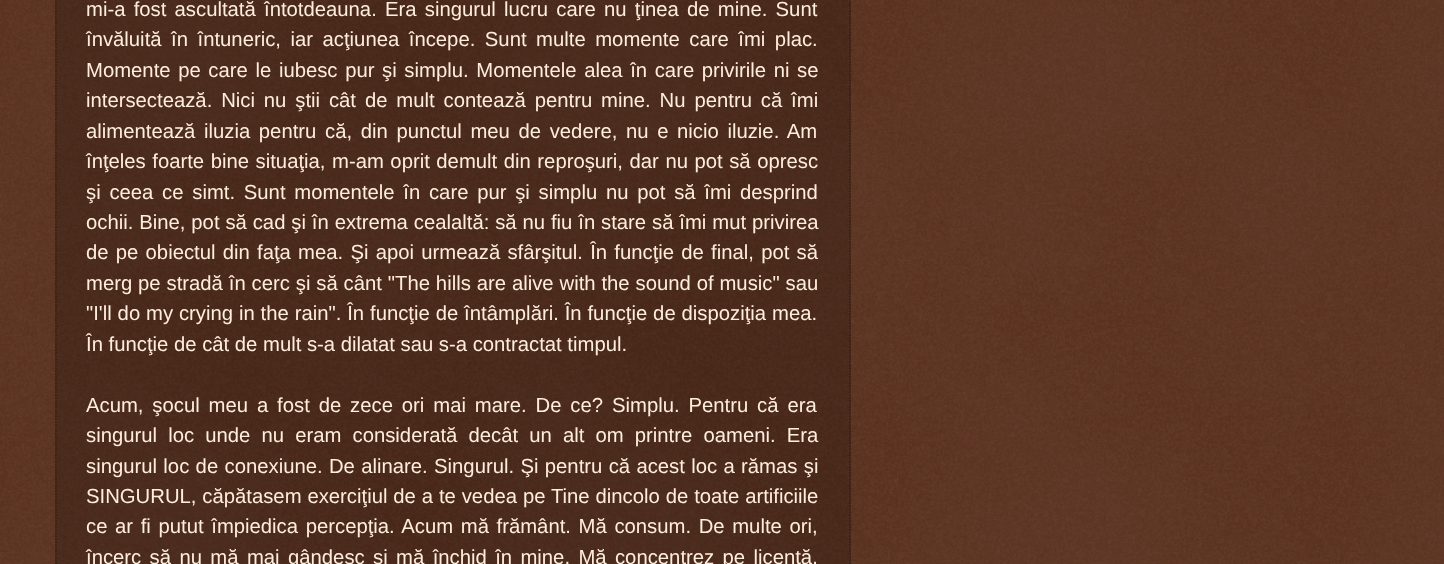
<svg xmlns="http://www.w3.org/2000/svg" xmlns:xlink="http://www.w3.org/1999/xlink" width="1444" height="564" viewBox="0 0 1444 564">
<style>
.cls-1{font:20.3px Liberation Sans;fill:#ffeedd}
</style>
<rect width="100%" height="100%" fill="#441500"/>
<image xlink:href="image0.png" x="0" y="0" width="1444" height="564"/>
<rect fill="#000000" fill-opacity="0.2" x="55" y="0" width="796" height="564"/>
<path fill="none" stroke="#332211" stroke-width="1.5" stroke-dasharray="1.5 1.5" d="M850-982.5V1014"/>
<path fill="none" stroke="#332211" stroke-width="1.5" stroke-dasharray="1.5 1.5" d="M56-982.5V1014"/>
<text class="cls-1"><tspan x="86" y="16" word-spacing="2.6">mi-a fost ascultată întotdeauna. Era singurul lucru care nu ţinea de mine. Sunt</tspan><tspan x="86" y="46" word-spacing="3.9">învăluită în întuneric, iar acţiunea începe. Sunt multe momente care îmi plac.</tspan><tspan x="86" y="77" word-spacing="2">Momente pe care le iubesc pur şi simplu. Momentele alea în care privirile ni se</tspan><tspan x="86" y="107" word-spacing="3.25">intersectează. Nici nu ştii cât de mult contează pentru mine. Nu pentru că îmi</tspan><tspan x="86" y="138" word-spacing="3">alimentează iluzia pentru că, din punctul meu de vedere, nu e nicio iluzie. Am</tspan><tspan x="86" y="168" word-spacing="0.9">înţeles foarte bine situaţia, m-am oprit demult din reproşuri, dar nu pot să opresc</tspan><tspan x="86" y="199" word-spacing="3.1">şi ceea ce simt. Sunt momentele în care pur şi simplu nu pot să îmi desprind</tspan><tspan x="86" y="229" word-spacing="0.25">ochii. Bine, pot să cad şi în extrema cealaltă: să nu fiu în stare să îmi mut privirea</tspan><tspan x="86" y="259" word-spacing="1.6">de pe obiectul din faţa mea. Şi apoi urmează sfârşitul. În funcţie de final, pot să</tspan><tspan x="86" y="290" word-spacing="0.25">merg pe stradă în cerc şi să cânt "The hills are alive with the sound of music" sau</tspan><tspan x="86" y="320" word-spacing="0.25">"I'll do my crying in the rain". În funcţie de întâmplări. În funcţie de dispoziţia mea.</tspan><tspan x="86" y="351">În funcţie de cât de mult s-a dilatat sau s-a contractat timpul.</tspan></text>
<text class="cls-1"><tspan x="86" y="412" word-spacing="3.25">Acum, şocul meu a fost de zece ori mai mare. De ce? Simplu. Pentru că era</tspan><tspan x="86" y="442" word-spacing="5.5">singurul loc unde nu eram considerată decât un alt om printre oameni. Era</tspan><tspan x="86" y="473" word-spacing="0.7">singurul loc de conexiune. De alinare. Singurul. Şi pentru că acest loc a rămas şi</tspan><tspan x="86" y="503" word-spacing="0.25">SINGURUL, căpătasem exerciţiul de a te vedea pe Tine dincolo de toate artificiile</tspan><tspan x="86" y="533" word-spacing="2">ce ar fi putut împiedica percepţia. Acum mă frământ. Mă consum. De multe ori,</tspan><tspan x="86" y="564" word-spacing="2.75">încerc să nu mă mai gândesc şi mă închid în mine. Mă concentrez pe licenţă.</tspan></text>
</svg>
